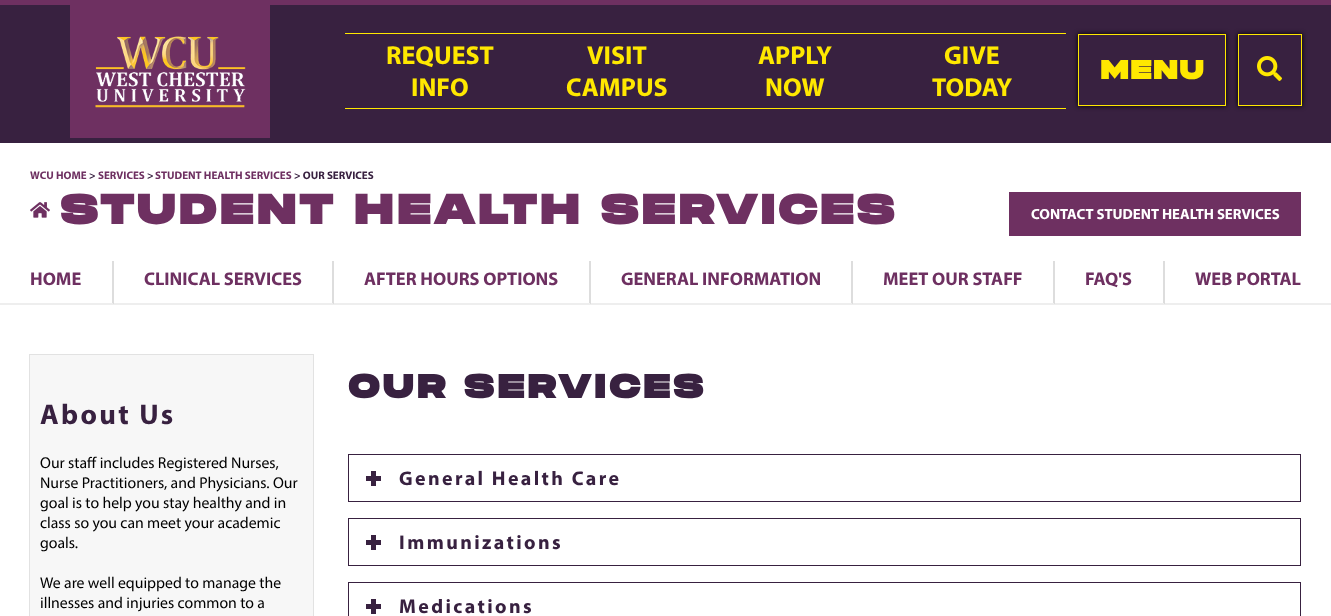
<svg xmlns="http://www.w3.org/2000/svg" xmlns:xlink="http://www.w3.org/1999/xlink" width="1331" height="616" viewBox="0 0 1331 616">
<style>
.cls-1{font:bold 26px Myriad;fill:#ffe800}
.cls-2{font:bold 26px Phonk;letter-spacing:1.5px;fill:#ffe800}
.cls-3{font:bold 11px Myriad;fill:#6e3061}
.cls-4{font:bold 11px Myriad;fill:#382140}
.cls-5{font:bold 41.4px Phonk;letter-spacing:3.2px;fill:#6e3061}
.cls-6{font:bold 14.75px Myriad;fill:#ffffff}
.cls-7{font:bold 18.4px Myriad;fill:#6e3061}
.cls-8{font:bold 28.5px Myriad;letter-spacing:2.4px;fill:#382140}
.cls-9{font:15.75px Myriad;fill:#000000}
.cls-10{font:bold 33.1px Phonk;letter-spacing:3.2px;fill:#382140}
.cls-11{font:bold 19.9px Myriad;letter-spacing:2.4px;fill:#382140}
</style>
<defs>
<clipPath id="clip1"><path d="M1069 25H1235V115H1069ZM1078 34H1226V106H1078Z" clip-rule="evenodd"/></clipPath>
<clipPath id="clip2"><path d="M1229 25H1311V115H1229ZM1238 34H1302V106H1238Z" clip-rule="evenodd"/></clipPath>
</defs>
<rect width="100%" height="100%" fill="#382140"/>
<rect fill="#6e3061" x="0" y="0" width="1331" height="5"/>
<image xlink:href="image0.png" x="70" y="5" width="200" height="133"/>
<rect fill="#ffe800" x="345" y="33" width="721" height="1"/>
<rect fill="#ffe800" x="345" y="108" width="721" height="1"/>
<g clip-path="url(#clip1)">
<rect fill="#000000" filter="blur(2.5px)" x="1078" y="34" width="148" height="72"/>
</g>
<rect fill="none" stroke="#ffe800" x="1078.5" y="34.5" width="147" height="71"/>
<g clip-path="url(#clip2)">
<rect fill="#000000" filter="blur(2.5px)" x="1238" y="34" width="64" height="72"/>
</g>
<rect fill="none" stroke="#ffe800" x="1238.5" y="34.5" width="63" height="71"/>
<image xlink:href="image1.png" x="1257" y="56" width="25" height="25"/>
<rect fill="#ffffff" x="0" y="143" width="1331" height="473"/>
<image xlink:href="image2.png" x="30" y="202" width="20" height="16"/>
<rect fill="#6e3061" x="1009" y="192" width="292" height="44"/>
<path fill="#dddddd" d="M114 261V305L112 303V261Z"/>
<path fill="#eeeeee" d="M114 305H0V303H112Z"/>
<path fill="#dddddd" d="M334 261V305L332 303V261Z"/>
<path fill="#eeeeee" d="M334 305H114V303H332Z"/>
<path fill="#dddddd" d="M591 261V305L589 303V261Z"/>
<path fill="#eeeeee" d="M591 305H334V303H589Z"/>
<path fill="#dddddd" d="M853 261V305L851 303V261Z"/>
<path fill="#eeeeee" d="M853 305H591V303H851Z"/>
<path fill="#dddddd" d="M1055 261V305L1053 303V261Z"/>
<path fill="#eeeeee" d="M1055 305H853V303H1053Z"/>
<path fill="#dddddd" d="M1165 261V305L1163 303V261Z"/>
<path fill="#eeeeee" d="M1165 305H1055V303H1163Z"/>
<rect fill="#eeeeee" x="1165" y="303" width="166" height="2"/>
<rect fill="#e2e2e2" filter="blur(0.5px)" x="29" y="354" width="285" height="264"/>
<rect fill="#f7f7f7" x="30" y="355" width="283" height="261"/>
<rect fill="none" stroke="#382140" x="348.5" y="454.5" width="952" height="47"/>
<rect fill="#382140" x="371" y="471" width="5" height="15"/>
<rect fill="#382140" x="366" y="476" width="15" height="5"/>
<rect fill="none" stroke="#382140" x="348.5" y="518.5" width="952" height="47"/>
<rect fill="#382140" x="371" y="535" width="5" height="15"/>
<rect fill="#382140" x="366" y="540" width="15" height="5"/>
<rect fill="none" stroke="#382140" x="348.5" y="582.5" width="952" height="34"/>
<rect fill="#382140" x="371" y="599" width="5" height="15"/>
<rect fill="#382140" x="366" y="604" width="15" height="5"/>
<text class="cls-1" x="386" y="64">REQUEST</text>
<text class="cls-1" x="411" y="96">INFO</text>
<text class="cls-1" x="587" y="64">VISIT</text>
<text class="cls-1" x="566" y="96">CAMPUS</text>
<text class="cls-1" x="758" y="64">APPLY</text>
<text class="cls-1" x="765" y="96">NOW</text>
<text class="cls-1" x="944" y="64">GIVE</text>
<text class="cls-1" x="932" y="96">TODAY</text>
<text class="cls-2" x="1100" y="79">MENU</text>
<text class="cls-3" x="30" y="179">WCU HOME</text>
<text class="cls-4" x="89" y="179">&gt;</text>
<text class="cls-3" x="98" y="179">SERVICES</text>
<text class="cls-4" x="147" y="179">&gt;</text>
<text class="cls-3" x="155" y="179">STUDENT HEALTH SERVICES</text>
<text class="cls-4" x="294" y="179">&gt; OUR SERVICES</text>
<text class="cls-5" x="60" y="224">STUDENT HEALTH SERVICES</text>
<text class="cls-6" x="1031" y="219">CONTACT STUDENT HEALTH SERVICES</text>
<text class="cls-7" x="30" y="285">HOME</text>
<text class="cls-7" x="144" y="285">CLINICAL SERVICES</text>
<text class="cls-7" x="364" y="285">AFTER HOURS OPTIONS</text>
<text class="cls-7" x="621" y="285">GENERAL INFORMATION</text>
<text class="cls-7" x="883" y="285">MEET OUR STAFF</text>
<text class="cls-7" x="1085" y="285">FAQ'S</text>
<text class="cls-7" x="1195" y="285">WEB PORTAL</text>
<text class="cls-8" x="40" y="424">About Us</text>
<text class="cls-9"><tspan x="40" y="468">Our staff includes Registered Nurses,</tspan><tspan x="40" y="488">Nurse Practitioners, and Physicians. Our</tspan><tspan x="40" y="508">goal is to help you stay healthy and in</tspan><tspan x="40" y="528">class so you can meet your academic</tspan><tspan x="40" y="548">goals.</tspan></text>
<text class="cls-9"><tspan x="40" y="588">We are well equipped to manage the</tspan><tspan x="40" y="608">illnesses and injuries common to a</tspan></text>
<text class="cls-10" x="348" y="398">OUR SERVICES</text>
<text class="cls-11" x="399" y="485">General Health Care</text>
<text class="cls-11" x="399" y="549">Immunizations</text>
<text class="cls-11" x="399" y="613">Medications</text>
</svg>
